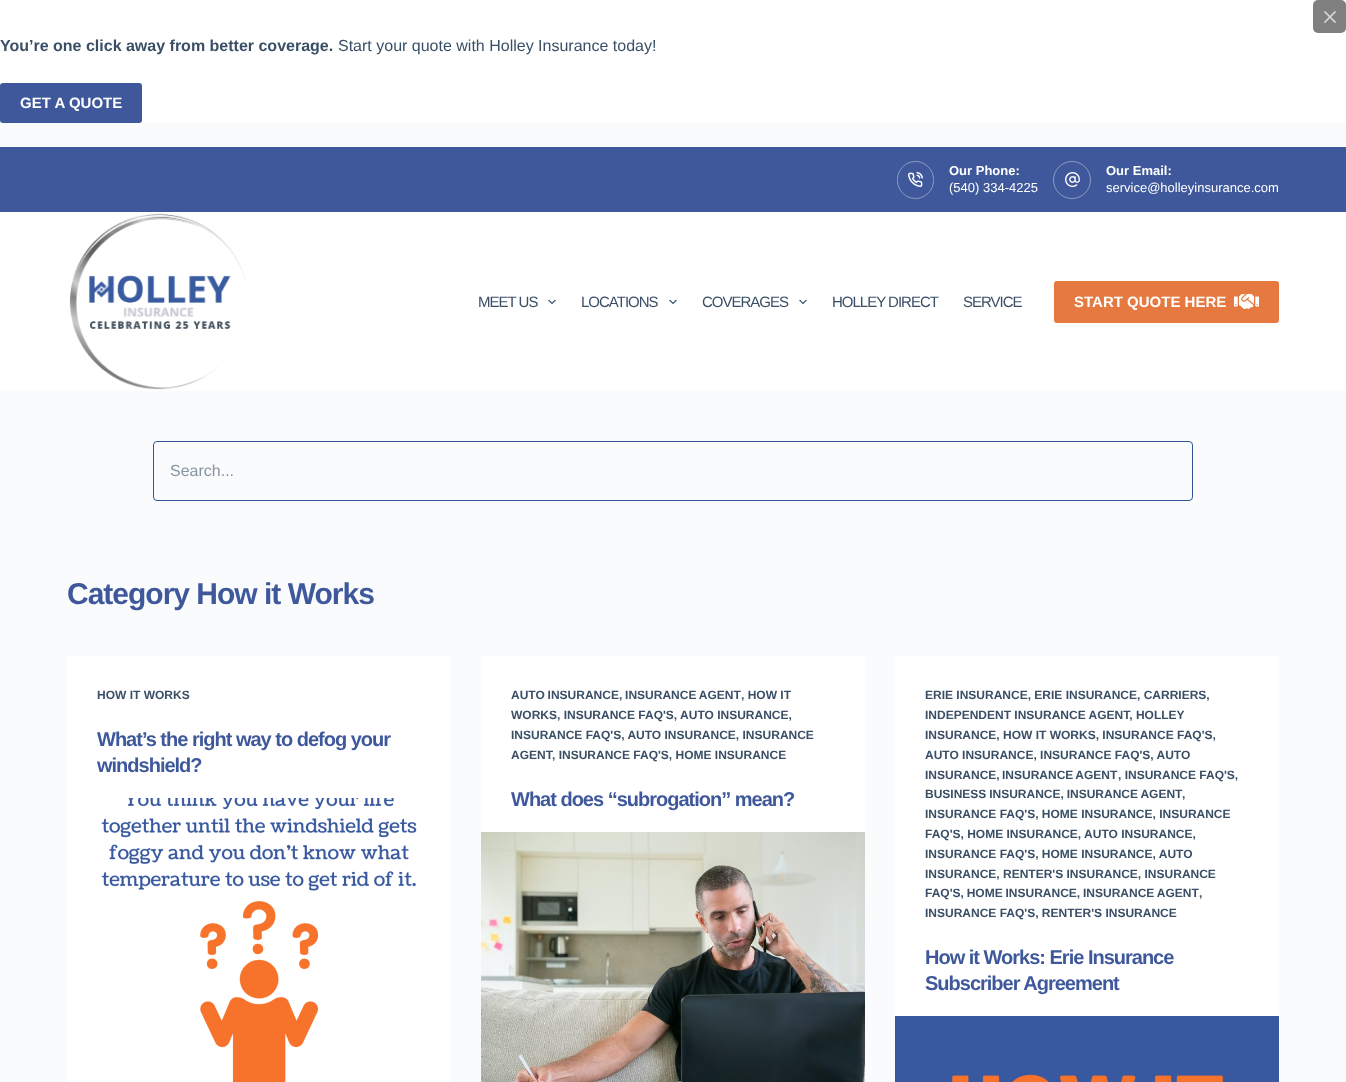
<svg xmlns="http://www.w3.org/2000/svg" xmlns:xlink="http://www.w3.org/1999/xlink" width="1346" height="1082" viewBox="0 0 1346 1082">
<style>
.cls-1{font:bold 16px Liberation Sans;fill:#3a4f66}
.cls-2{font:16px Liberation Sans;fill:#3a4f66}
.cls-3{font:bold 15px Liberation Sans;fill:#ffffff}
.cls-4{font:bold 13px Liberation Sans;fill:#ffffff}
.cls-5{font:13px Liberation Sans;fill:#ffffff}
.cls-6{font:15px Liberation Sans;letter-spacing:-1px;fill:#3a4f66}
.cls-7{font:16px Liberation Sans;fill:#8794a2}
.cls-8{font:bold 30px Liberation Sans;letter-spacing:-1px;fill:#3e589b}
.cls-9{font:bold 12px Liberation Sans;fill:#3a4f66}
.cls-10{font:bold 20px Liberation Sans;letter-spacing:-1px;fill:#3e589b}
</style>
<rect width="100%" height="100%" fill="#fafbfc"/>
<rect fill="#ffffff" x="0" y="0" width="1346" height="123"/>
<rect fill="#808080" x="1313" y="0" width="33" height="33" rx="5"/>
<image xlink:href="image0.png" x="1324" y="11" width="12" height="12"/>
<rect fill="#3e589b" x="0" y="83" width="142" height="40" rx="3"/>
<rect fill="#3e589b" x="0" y="147" width="1346" height="65"/>
<rect fill="none" stroke="#8c9bc0" x="897.5" y="161.5" width="36" height="37" rx="18"/>
<image xlink:href="image1.png" x="908" y="172" width="15" height="15"/>
<circle fill="none" stroke="#8c9bc0" cx="1072" cy="180" r="18.5"/>
<image xlink:href="image2.png" x="1065" y="172" width="15" height="15"/>
<rect fill="#ffffff" x="0" y="212" width="1346" height="179"/>
<image xlink:href="image3.png" x="69" y="213" width="176" height="177"/>
<image xlink:href="image4.png" x="548" y="299" width="8" height="6"/>
<image xlink:href="image4.png" x="669" y="299" width="8" height="6"/>
<image xlink:href="image4.png" x="799" y="299" width="8" height="6"/>
<rect fill="#e6793f" x="1054" y="281" width="225" height="42" rx="3"/>
<image xlink:href="image5.png" x="1234" y="294" width="25" height="15"/>
<rect fill="none" stroke="#33549b" x="153.5" y="441.5" width="1039" height="59" rx="3.5"/>
<rect fill="#ffffff" x="67" y="656" width="384" height="426"/>
<image xlink:href="image6.png" x="101" y="798" width="316" height="284"/>
<rect fill="#ffffff" x="481" y="656" width="384" height="176"/>
<image xlink:href="image7.png" x="481" y="832" width="384" height="250"/>
<rect fill="#ffffff" x="895" y="656" width="384" height="360"/>
<image xlink:href="image8.png" x="895" y="1016" width="384" height="66"/>
<text class="cls-1" x="0" y="51">You’re one click away from better coverage.</text>
<text class="cls-2" x="338" y="51">Start your quote with Holley Insurance today!</text>
<text class="cls-3" x="20" y="108">GET A QUOTE</text>
<text class="cls-4" x="949" y="175">Our Phone:</text>
<text class="cls-5" x="949" y="192">(540) 334-4225</text>
<text class="cls-4" x="1106" y="175">Our Email:</text>
<text class="cls-5" x="1106" y="192">service@holleyinsurance.com</text>
<text class="cls-6" x="478" y="307">MEET US</text>
<text class="cls-6" x="581" y="307">LOCATIONS</text>
<text class="cls-6" x="702" y="307">COVERAGES</text>
<text class="cls-6" x="832" y="307">HOLLEY DIRECT</text>
<text class="cls-6" x="963" y="307">SERVICE</text>
<text class="cls-3" x="1074" y="307">START QUOTE HERE</text>
<text class="cls-7" x="170" y="476">Search...</text>
<text class="cls-8" x="67" y="604">Category How it Works</text>
<text class="cls-9" x="97" y="699">HOW IT WORKS</text>
<text class="cls-10"><tspan x="97" y="746">What’s the right way to defog your</tspan><tspan x="97" y="772">windshield?</tspan></text>
<text class="cls-9" x="511" y="699" word-spacing="-0.5">AUTO INSURANCE, INSURANCE AGENT</text>
<text class="cls-9" x="741" y="699">, HOW IT</text>
<text class="cls-9"><tspan x="511" y="719">WORKS, INSURANCE FAQ'S, AUTO INSURANCE,</tspan><tspan x="511" y="739">INSURANCE FAQ'S, AUTO INSURANCE, INSURANCE</tspan><tspan x="511" y="759">AGENT</tspan></text>
<text class="cls-9" x="552" y="759">, INSURANCE FAQ'S, HOME INSURANCE</text>
<text class="cls-10" x="511" y="806">What does “subrogation” mean?</text>
<text class="cls-9"><tspan x="925" y="699">ERIE INSURANCE, ERIE INSURANCE, CARRIERS,</tspan><tspan x="925" y="719">INDEPENDENT INSURANCE AGENT, HOLLEY</tspan><tspan x="925" y="739">INSURANCE, HOW IT WORKS, INSURANCE FAQ'S,</tspan><tspan x="925" y="759">AUTO INSURANCE, INSURANCE FAQ'S, AUTO</tspan><tspan x="925" y="779" word-spacing="-1">INSURANCE, INSURANCE AGENT</tspan></text>
<text class="cls-9" x="1118" y="779">, INSURANCE FAQ'S,</text>
<text class="cls-9" x="925" y="798" word-spacing="-0.5">BUSINESS INSURANCE, INSURANCE AGENT</text>
<text class="cls-9" x="1182" y="798">,</text>
<text class="cls-9"><tspan x="925" y="818">INSURANCE FAQ'S, HOME INSURANCE, INSURANCE</tspan><tspan x="925" y="838">FAQ'S, HOME INSURANCE, AUTO INSURANCE,</tspan><tspan x="925" y="858">INSURANCE FAQ'S, HOME INSURANCE, AUTO</tspan><tspan x="925" y="878">INSURANCE, RENTER'S INSURANCE, INSURANCE</tspan><tspan x="925" y="897" word-spacing="-0.5">FAQ'S, HOME INSURANCE, INSURANCE AGENT</tspan></text>
<text class="cls-9" x="1199" y="897">,</text>
<text class="cls-9" x="925" y="917">INSURANCE FAQ'S, RENTER'S INSURANCE</text>
<text class="cls-10"><tspan x="925" y="964">How it Works: Erie Insurance</tspan><tspan x="925" y="990">Subscriber Agreement</tspan></text>
</svg>
